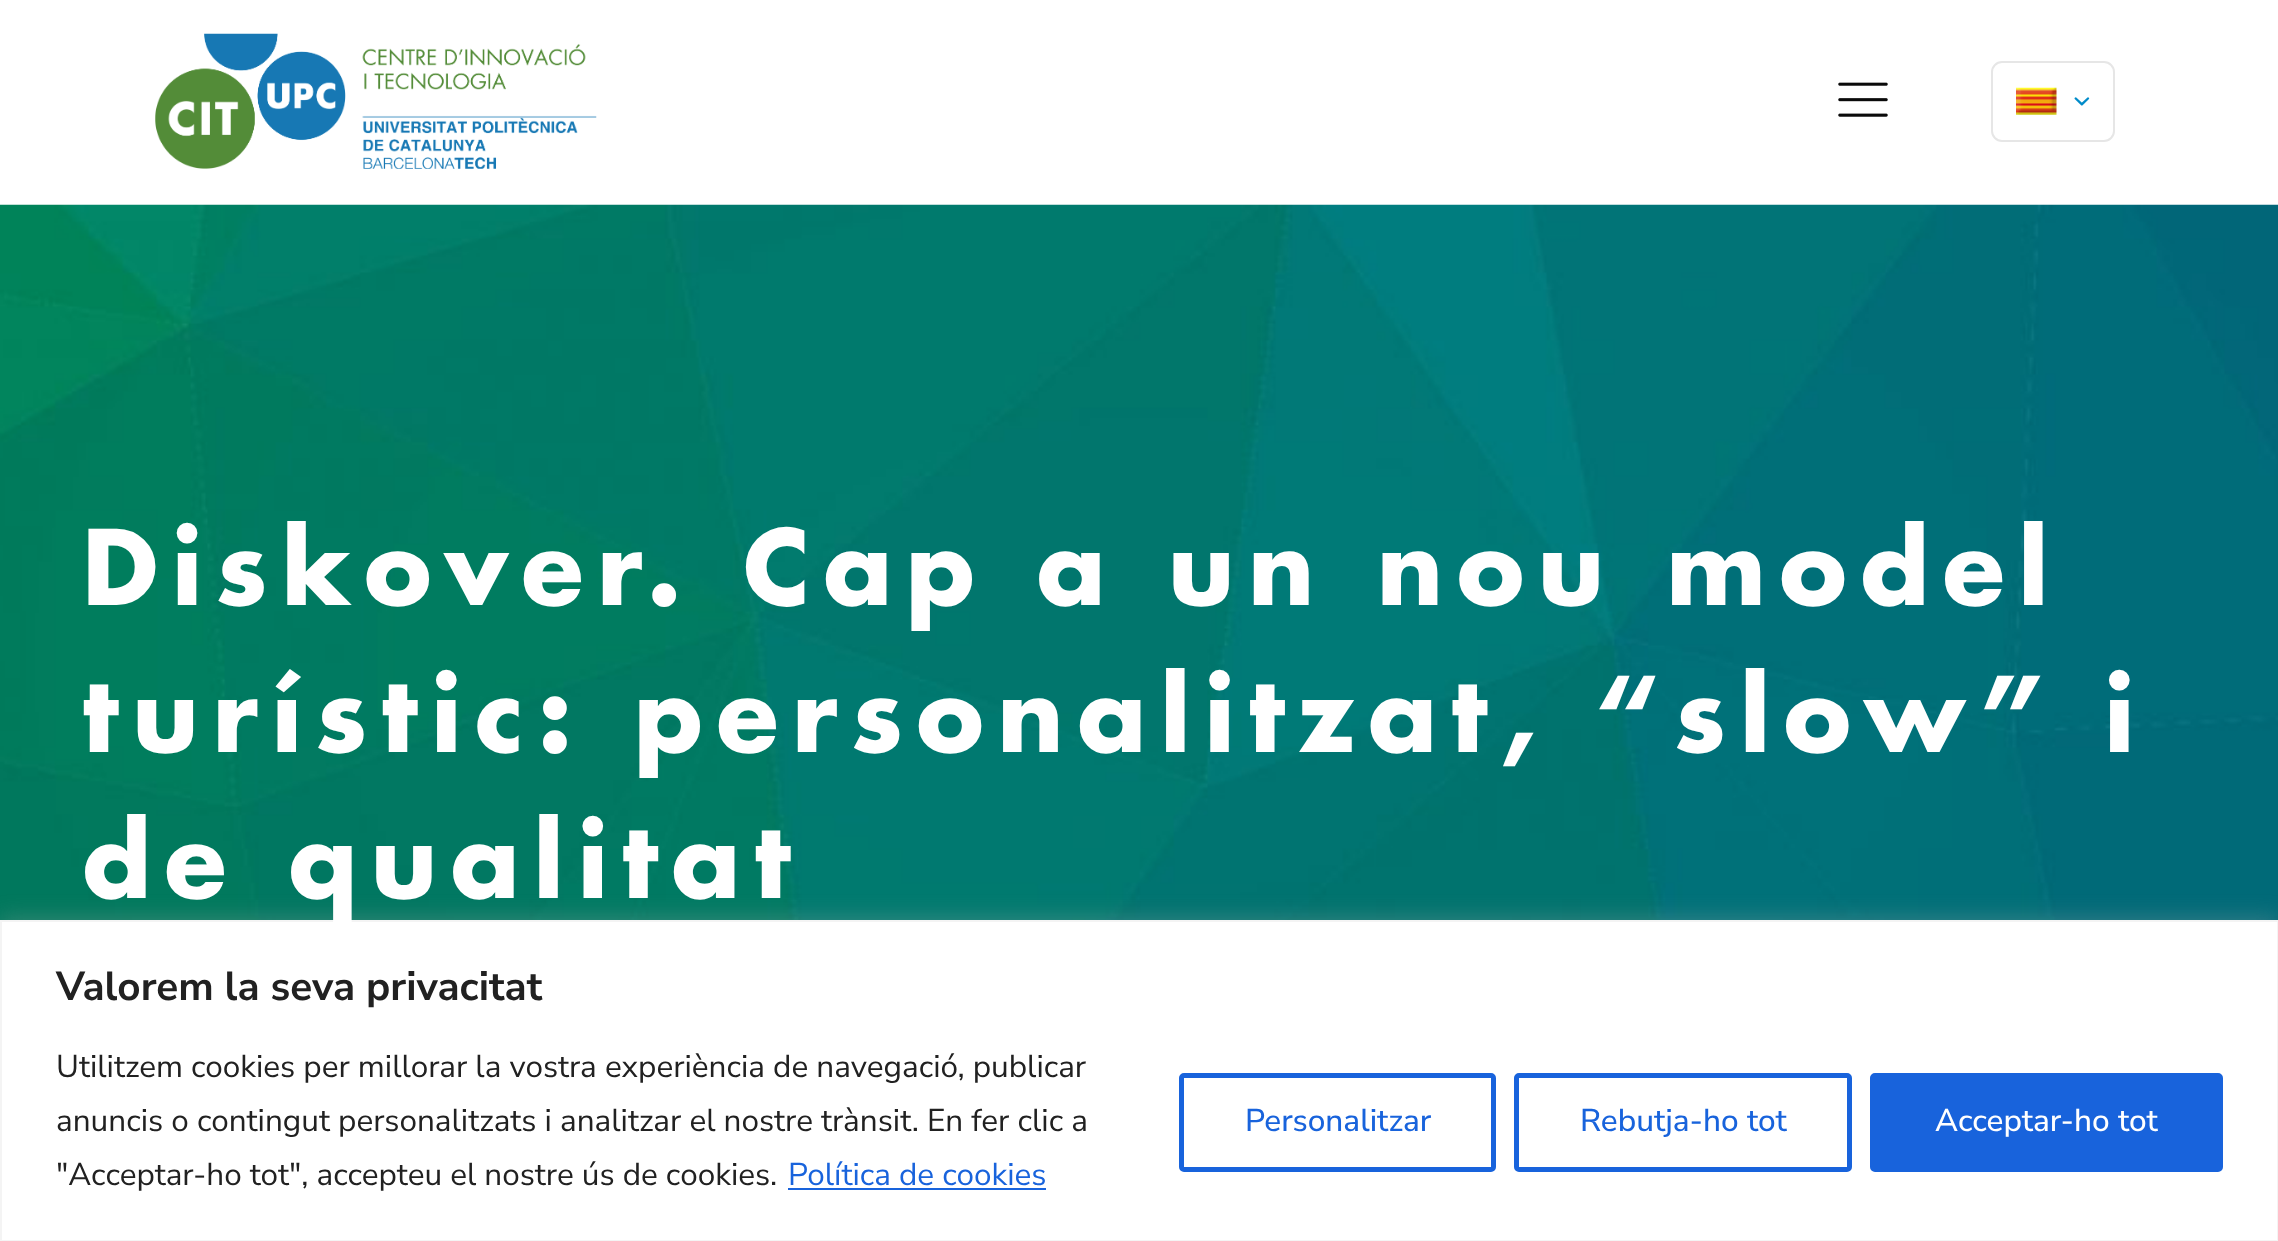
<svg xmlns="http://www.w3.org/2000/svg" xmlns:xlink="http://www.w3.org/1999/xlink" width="2278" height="1241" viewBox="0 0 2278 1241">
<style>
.cls-1{font:bold 101.25px Futura;letter-spacing:13.5px;fill:#ffffff}
.cls-2{font:bold 40.5px Nunito Sans;fill:#212121}
.cls-3{font:31.5px Nunito Sans;fill:#212121}
.cls-4{font:31.5px Nunito Sans;fill:#1863dc}
.cls-5{font:500 31.5px Nunito Sans;fill:#1863dc}
.cls-6{font:500 31.5px Nunito Sans;fill:#ffffff}
</style>
<rect width="100%" height="100%" fill="#ffffff"/>
<image xlink:href="image0.png" x="155" y="33" width="442" height="136"/>
<image xlink:href="image1.png" x="1838" y="82" width="50" height="35"/>
<rect fill="none" stroke="#e6e6e6" stroke-width="2" x="1992" y="62" width="122" height="79" rx="10"/>
<image xlink:href="image2.png" x="2016" y="87" width="41" height="28"/>
<image xlink:href="image3.png" x="2074" y="97" width="16" height="9"/>
<image xlink:href="image4.png" x="0" y="204" width="2278" height="716"/>
<rect fill="#acabab" fill-opacity="0.3" filter="blur(11px)" x="0" y="918" width="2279" height="322"/>
<rect fill="#ffffff" stroke="#f4f4f4" stroke-width="2" x="1" y="921" width="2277" height="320"/>
<rect fill="#1863dc" x="788" y="1188" width="258" height="2"/>
<rect fill="none" stroke="#1863dc" stroke-width="5" x="1181.5" y="1075.5" width="312" height="94" rx="2.5"/>
<rect fill="none" stroke="#1863dc" stroke-width="5" x="1516.5" y="1075.5" width="333" height="94" rx="2.5"/>
<rect fill="#1863dc" stroke="#1863dc" stroke-width="5" x="1872.5" y="1075.5" width="348" height="94" rx="2.5"/>
<text class="cls-1"><tspan x="82" y="605">Diskover. Cap a un nou model</tspan><tspan x="82" y="752">turístic: personalitzat, “slow” i</tspan><tspan x="82" y="898">de qualitat</tspan></text>
<text class="cls-2" x="56" y="1000">Valorem la seva privacitat</text>
<text class="cls-3"><tspan x="56" y="1077">Utilitzem cookies per millorar la vostra experiència de navegació, publicar</tspan><tspan x="56" y="1131">anuncis o contingut personalitzats i analitzar el nostre trànsit. En fer clic a</tspan><tspan x="56" y="1185">"Acceptar-ho tot", accepteu el nostre ús de cookies.</tspan></text>
<text class="cls-4" x="788" y="1185">Política de cookies</text>
<text class="cls-5" x="1245" y="1131">Personalitzar</text>
<text class="cls-5" x="1580" y="1131">Rebutja-ho tot</text>
<text class="cls-6" x="1935" y="1131">Acceptar-ho tot</text>
</svg>
